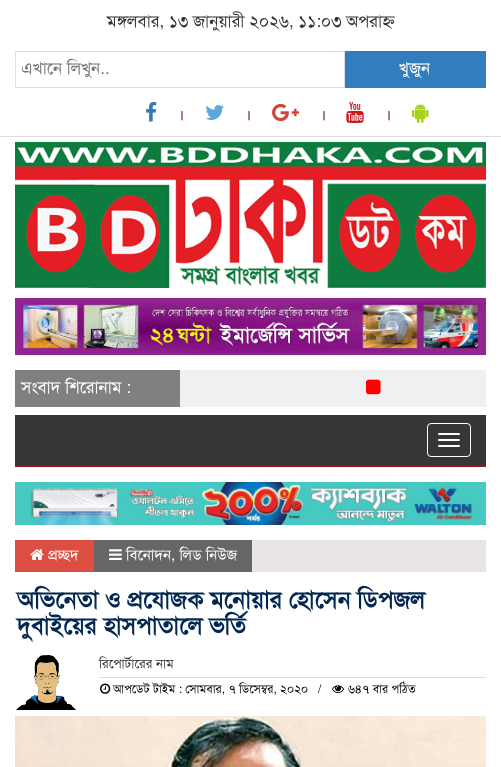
<svg xmlns="http://www.w3.org/2000/svg" xmlns:xlink="http://www.w3.org/1999/xlink" width="501" height="767" viewBox="0 0 501 767">
<style>
.cls-1{font:17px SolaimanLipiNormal;fill:#333333}
.cls-2{font:17px SolaimanLipiNormal;fill:#757575}
.cls-3{font:17px SolaimanLipiNormal;fill:#ffffff}
.cls-4{font:17px SolaimanLipiNormal;fill:#4d0202}
.cls-5{font:15px SolaimanLipiNormal;fill:#ffffff}
.cls-6{font:bold 24px SolaimanLipiNormal;fill:#022751}
.cls-7{font:13px SolaimanLipiNormal;fill:#333333}
.cls-8{font:12px SolaimanLipiNormal;fill:#000000}
</style>
<rect width="100%" height="100%" fill="#ffffff"/>
<rect fill="#dddddd" x="0" y="136" width="501" height="1"/>
<rect fill="none" stroke="#dddddd" x="15.5" y="51.5" width="329" height="36"/>
<rect fill="#327dbd" x="345" y="51" width="141" height="37"/>
<image xlink:href="image0.png" x="146" y="102" width="11" height="20"/>
<image xlink:href="image1.png" x="205" y="105" width="19" height="15"/>
<image xlink:href="image2.png" x="272" y="103" width="27" height="19"/>
<image xlink:href="image3.png" x="346" y="102" width="18" height="21"/>
<image xlink:href="image4.png" x="412" y="103" width="17" height="20"/>
<image xlink:href="image5.png" x="15" y="142" width="471" height="146"/>
<image xlink:href="image6.png" x="15" y="298" width="471" height="57"/>
<rect fill="#827f7f" x="15" y="370" width="165" height="37"/>
<rect fill="#f0f0f0" x="180" y="370" width="306" height="37"/>
<image xlink:href="image7.png" x="366" y="379" width="15" height="16"/>
<rect fill="#363636" x="15" y="415" width="471" height="50"/>
<rect fill="#9a1515" x="15" y="465" width="471" height="2"/>
<rect fill="none" stroke="#ffffff" x="427.5" y="423.5" width="43" height="33" rx="3.5"/>
<rect fill="#ffffff" x="438" y="433" width="22" height="2" rx="1"/>
<rect fill="#ffffff" x="438" y="439" width="22" height="2" rx="1"/>
<rect fill="#ffffff" x="438" y="445" width="22" height="2" rx="1"/>
<image xlink:href="image8.png" x="15" y="482" width="471" height="43"/>
<rect fill="#eae5e5" x="252" y="540" width="234" height="32"/>
<rect fill="#dc4e41" x="15" y="540" width="79" height="32"/>
<image xlink:href="image9.png" x="30" y="549" width="14" height="11"/>
<rect fill="#666666" x="94" y="540" width="158" height="32"/>
<image xlink:href="image10.png" x="109" y="549" width="13" height="11"/>
<image xlink:href="image11.png" x="16" y="655" width="60" height="55"/>
<rect fill="#dddddd" x="99" y="677" width="387" height="1"/>
<image xlink:href="image12.png" x="100" y="683" width="11" height="11"/>
<image xlink:href="image13.png" x="332" y="685" width="12" height="8"/>
<image xlink:href="image14.png" x="15" y="716" width="471" height="51"/>
<text class="cls-1" x="107" y="27">মঙ্গলবার, ১৩ জানুয়ারী ২০২৬, ১১:০৩ অপরাহ্ন</text>
<text class="cls-2" x="21" y="74">এখানে লিখুন..</text>
<text class="cls-3" x="399" y="74">খুজুন</text>
<text class="cls-4" x="177" y="120">।</text>
<text class="cls-4" x="244" y="120">।</text>
<text class="cls-4" x="319" y="120">।</text>
<text class="cls-4" x="384" y="120">।</text>
<text class="cls-3" x="21" y="393">সংবাদ শিরোনাম :</text>
<text class="cls-5" x="48" y="560">প্রচ্ছদ</text>
<text class="cls-5" x="126" y="560">বিনোদন, লিড নিউজ</text>
<text class="cls-6"><tspan x="17" y="608">অভিনেতা ও প্রযোজক মনোয়ার হোসেন ডিপজল</tspan><tspan x="17" y="634">দুবাইয়ের হাসপাতালে ভর্তি</tspan></text>
<text class="cls-7" x="99" y="668">রিপোর্টারের নাম</text>
<text class="cls-8" x="113" y="693">আপডেট টাইম : সোমবার, ৭ ডিসেম্বর, ২০২০</text>
<text class="cls-8" x="318" y="693">/</text>
<text class="cls-8" x="348" y="693">৬৪৭ বার পঠিত</text>
</svg>
